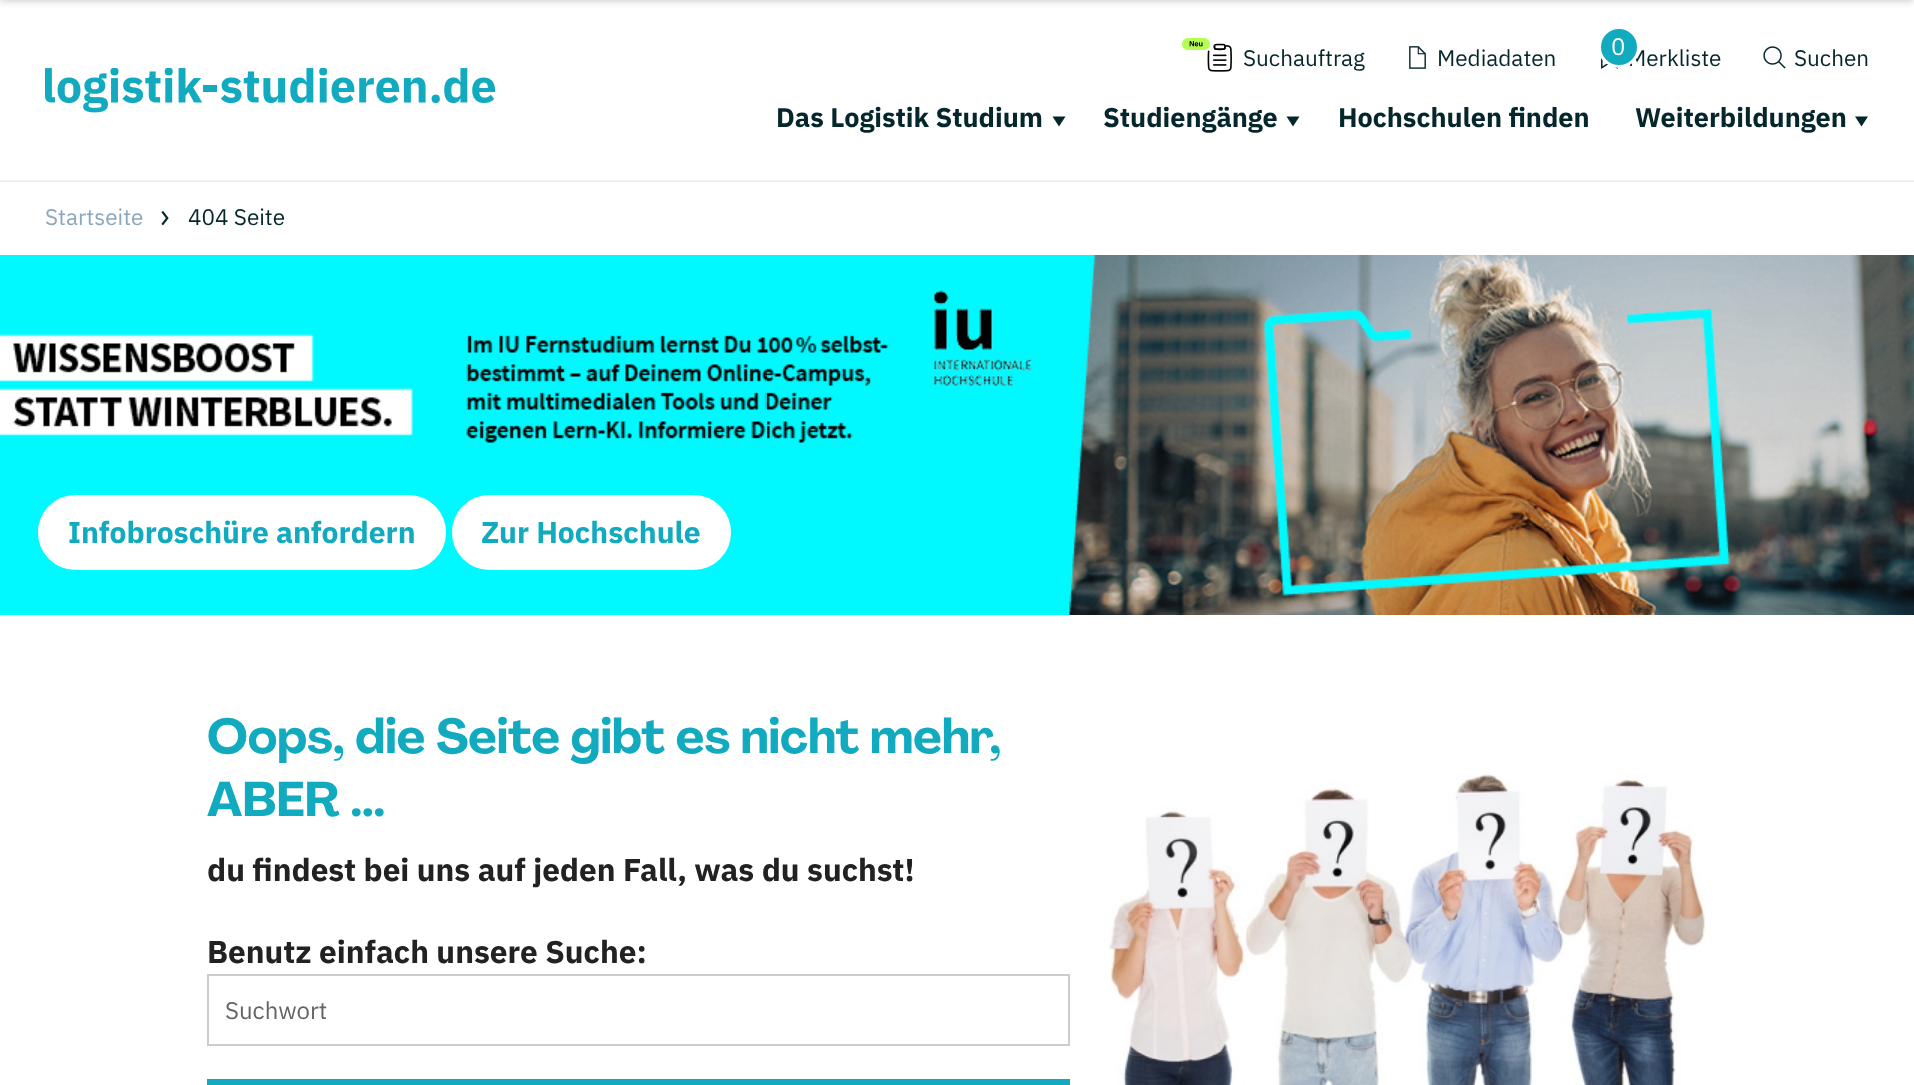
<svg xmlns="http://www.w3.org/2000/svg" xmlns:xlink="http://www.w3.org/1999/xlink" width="1914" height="1085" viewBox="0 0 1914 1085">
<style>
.cls-1{font:22.5px IBM Plex Sans;fill:#05262b}
.cls-2{font:24px IBM Plex Sans;letter-spacing:-3px;fill:#ffffff}
.cls-3{font:bold 27px IBM Plex Sans;fill:#05262b}
.cls-4{font:22.5px IBM Plex Sans;fill:#8ba6bd}
.cls-5{font:bold 30px IBM Plex Sans;fill:#12aabe}
.cls-6{font:bold 48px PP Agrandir;fill:#12aabe}
.cls-7{font:bold 31.5px IBM Plex Sans;fill:#222222}
.cls-8{font:24px IBM Plex Sans;fill:#646464}
</style>
<rect width="100%" height="100%" fill="#ffffff"/>
<rect fill="#000000" fill-opacity="0.25" filter="blur(4px)" x="0" y="-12" width="1914" height="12"/>
<image xlink:href="image0.png" x="45" y="68" width="450" height="45"/>
<image xlink:href="image1.png" x="1182" y="38" width="50" height="34"/>
<image xlink:href="image2.png" x="1409" y="46" width="17" height="23"/>
<image xlink:href="image3.png" x="1601" y="57" width="17" height="12"/>
<image xlink:href="image4.png" x="1763" y="46" width="23" height="23"/>
<path fill="#05262b" d="M1065.5 116.5L1059 126.5L1052.5 116.5Z"/>
<path fill="#05262b" d="M1299.5 116.5L1293 126.5L1286.5 116.5Z"/>
<path fill="#05262b" d="M1868 116.5L1861.5 126.5L1855 116.5Z"/>
<rect fill="#eeeeee" x="0" y="180" width="1914" height="2"/>
<image xlink:href="image5.png" x="161" y="211" width="8" height="15"/>
<image xlink:href="image6.png" x="0" y="255" width="1914" height="360"/>
<rect fill="#ffffff" stroke="#ffffff" stroke-width="2" x="39" y="496" width="406" height="73" rx="36.5"/>
<rect fill="#ffffff" stroke="#ffffff" stroke-width="2" x="453" y="496" width="277" height="73" rx="36.5"/>
<rect fill="none" stroke="#cccccc" stroke-width="2" x="208" y="975" width="861" height="70"/>
<rect fill="#12aabe" x="207" y="1079" width="863" height="6"/>
<image xlink:href="image7.png" x="1109" y="773" width="598" height="312"/>
<text class="cls-1" x="1243" y="66">Suchauftrag</text>
<text class="cls-1" x="1437" y="66">Mediadaten</text>
<text class="cls-1" x="1628" y="66">Merkliste</text>
<circle fill="#12aabe" stroke="#ffffff" stroke-width="3" cx="1619" cy="47" r="19.5"/>
<text class="cls-2" x="1611" y="55">0</text>
<text class="cls-1" x="1794" y="66">Suchen</text>
<text class="cls-3" x="776" y="127">Das Logistik Studium</text>
<text class="cls-3" x="1103" y="127">Studiengänge</text>
<text class="cls-3" x="1338" y="127">Hochschulen finden</text>
<text class="cls-3" x="1635" y="127">Weiterbildungen</text>
<text class="cls-4" x="45" y="225">Startseite</text>
<text class="cls-1" x="188" y="225">404 Seite</text>
<text class="cls-5" x="68" y="543">Infobroschüre anfordern</text>
<text class="cls-5" x="481" y="543">Zur Hochschule</text>
<text class="cls-6"><tspan x="207" y="753">Oops, die Seite gibt es nicht mehr,</tspan><tspan x="207" y="816">ABER ...</tspan></text>
<text class="cls-7" x="207" y="881">du findest bei uns auf jeden Fall, was du suchst!</text>
<text class="cls-7" x="207" y="963">Benutz einfach unsere Suche:</text>
<text class="cls-8" x="225" y="1019">Suchwort</text>
</svg>
